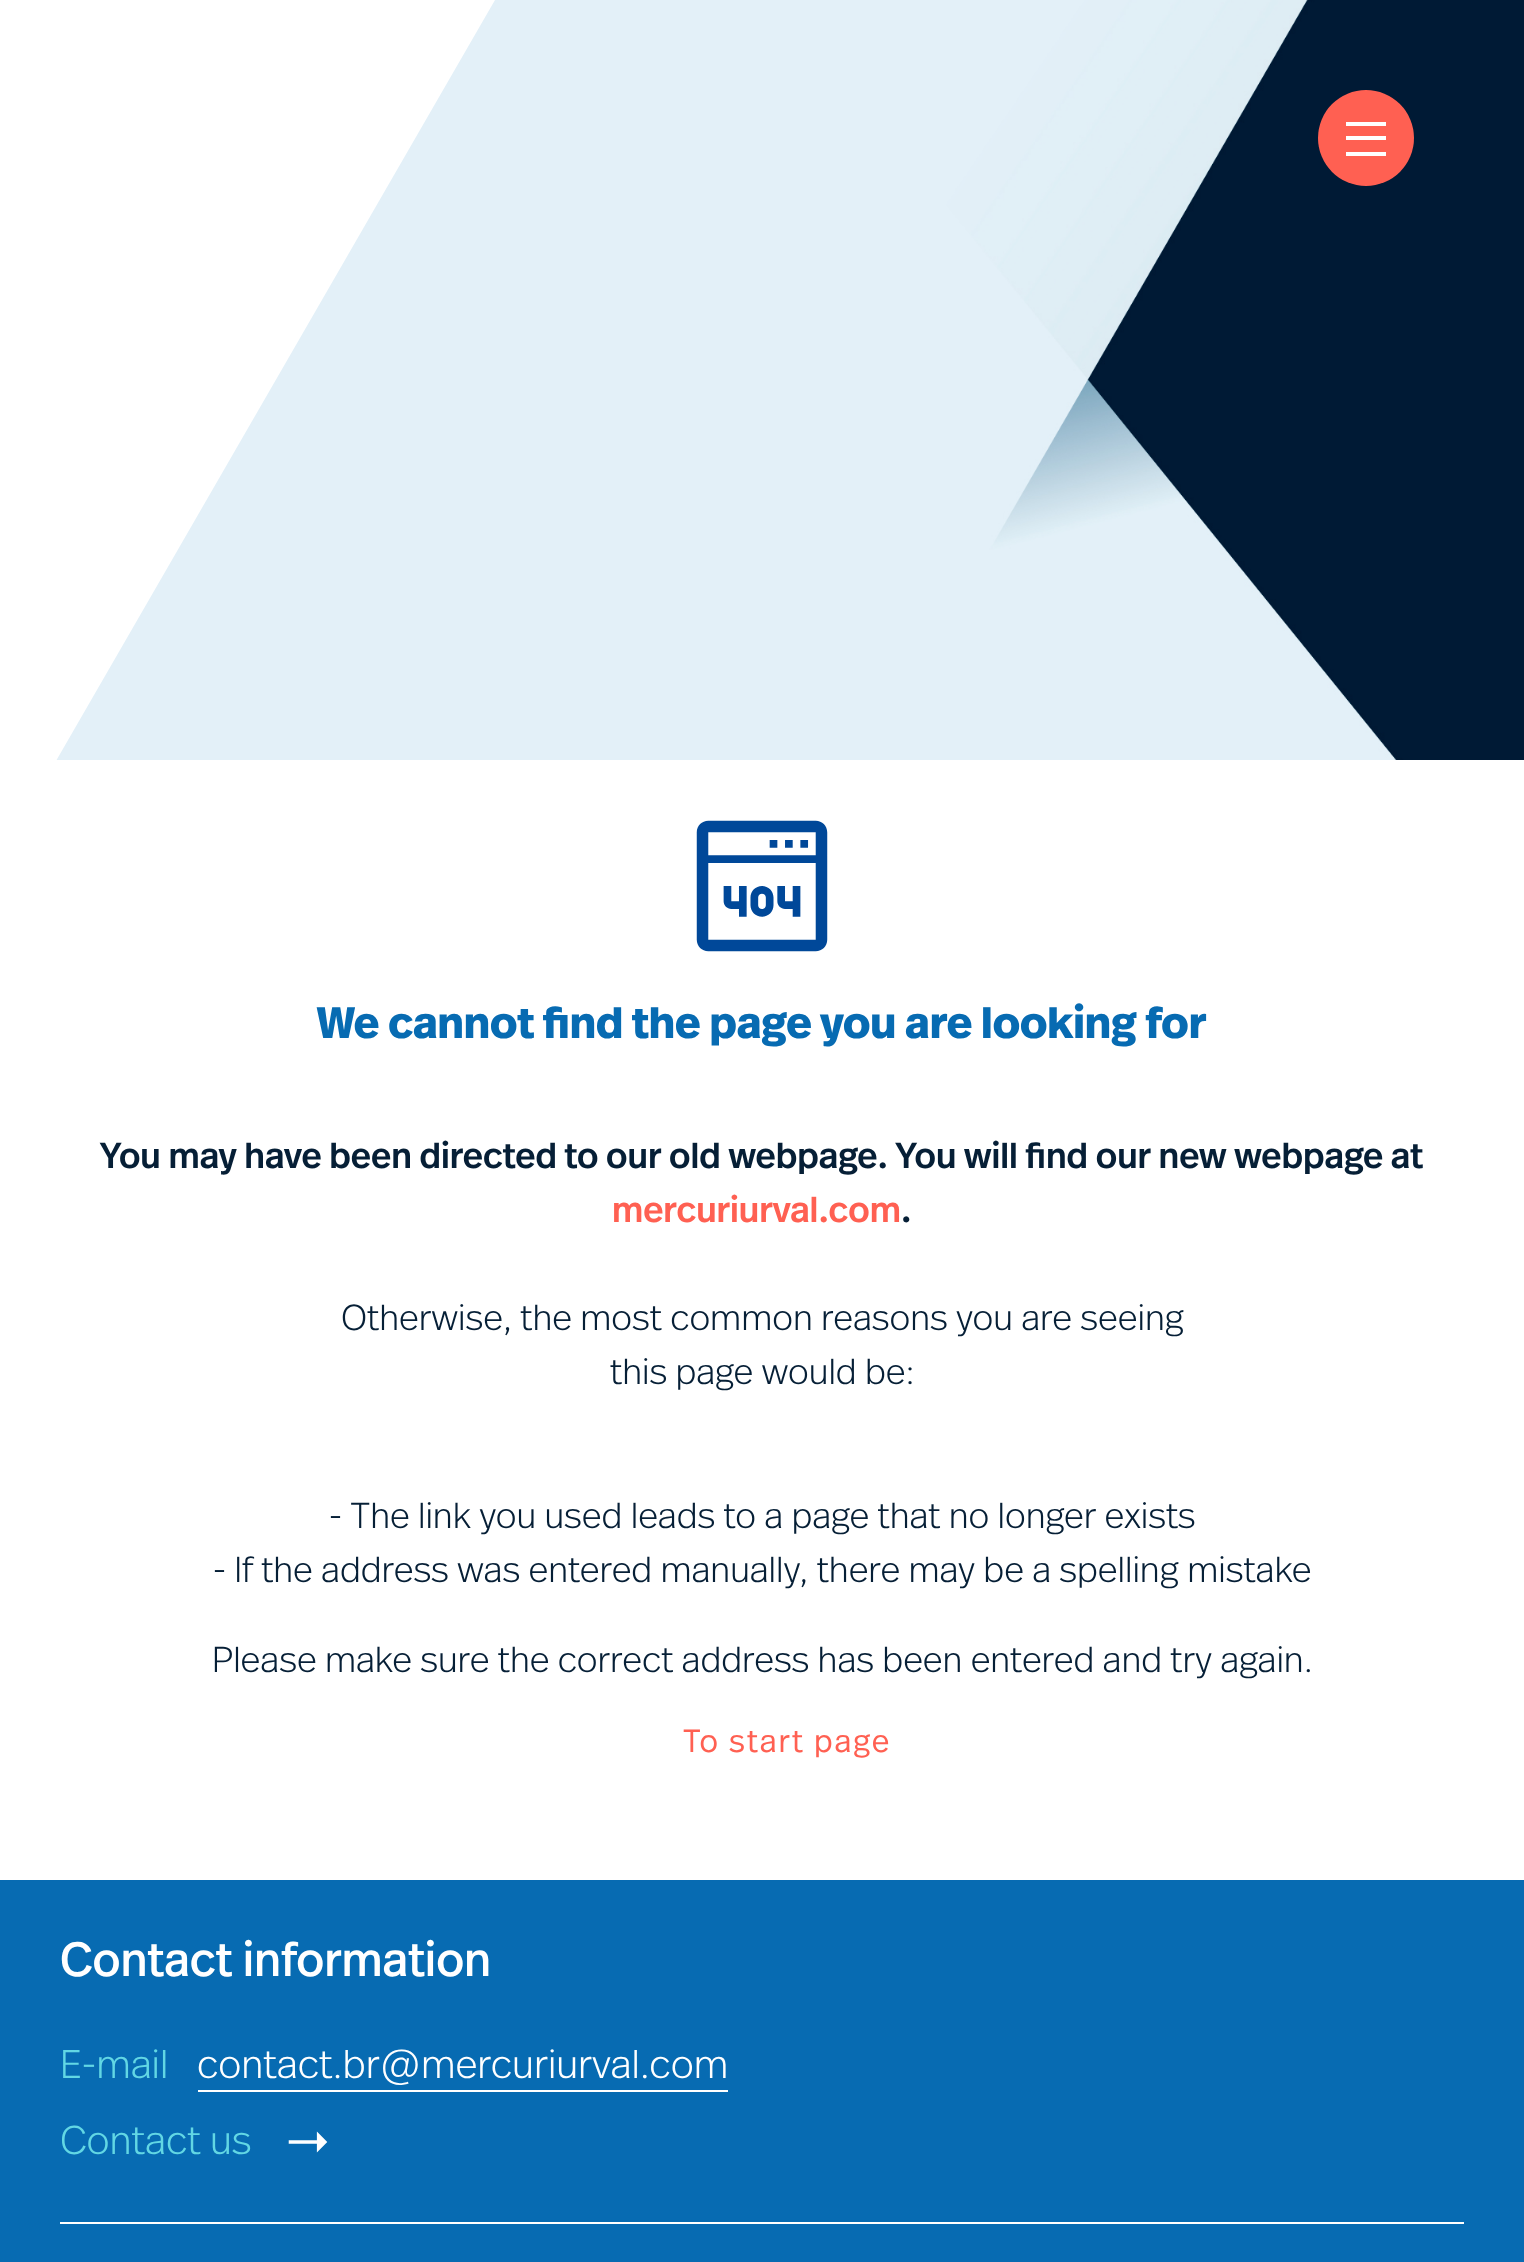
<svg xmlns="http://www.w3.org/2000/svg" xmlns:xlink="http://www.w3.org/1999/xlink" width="1524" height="2262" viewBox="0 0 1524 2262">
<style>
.cls-1{font:bold 44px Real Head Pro;fill:#076bb2}
.cls-2{font:500 36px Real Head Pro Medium;fill:#061f36}
.cls-3{font:500 36px Real Head Pro Medium;fill:#ff6052}
.cls-4{font:300 36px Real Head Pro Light;fill:#061f36}
.cls-5{font:300 32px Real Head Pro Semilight;letter-spacing:2px;fill:#ff6052}
.cls-6{font:48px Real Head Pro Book;fill:#ffffff}
.cls-7{font:300 40px Real Head Pro Light;fill:#62d7e4}
.cls-8{font:300 40px Real Head Pro Light;fill:#ffffff}
</style>
<defs>
<clipPath id="clip1"><rect x="0" y="0" width="1524" height="760"/></clipPath>
</defs>
<rect width="100%" height="100%" fill="#ffffff"/>
<image xlink:href="image0.png" x="56" y="0" width="1468" height="760"/>
<circle fill="#ff6052" cx="1366" cy="138" r="48"/>
<rect fill="#ffffff" x="1346" y="122" width="40" height="4"/>
<rect fill="#ffffff" x="1346" y="136" width="40" height="4"/>
<rect fill="#ffffff" x="1346" y="152" width="40" height="4"/>
<g clip-path="url(#clip1)">
<path fill="#ffffff" d="M-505 0H495L45 780H-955Z"/>
</g>
<image xlink:href="image1.png" x="696" y="820" width="132" height="132"/>
<rect fill="#076bb2" x="0" y="1880" width="1524" height="382"/>
<rect fill="#ffffff" x="198" y="2090" width="530" height="2"/>
<image xlink:href="image2.png" x="288" y="2131" width="40" height="22"/>
<rect fill="#ffffff" x="60" y="2222" width="1404" height="2"/>
<text class="cls-1" x="317" y="1038">We cannot find the page you are looking for</text>
<text class="cls-2" x="100" y="1168">You may have been directed to our old webpage. You will find our new webpage at</text>
<text class="cls-3" x="612" y="1222">mercuriurval.com</text>
<text class="cls-2" x="901" y="1222">.</text>
<text class="cls-4" x="341" y="1330">Otherwise, the most common reasons you are seeing</text>
<text class="cls-4" x="610" y="1384">this page would be:</text>
<text class="cls-4" x="329" y="1528">- The link you used leads to a page that no longer exists</text>
<text class="cls-4" x="213" y="1582">- If the address was entered manually, there may be a spelling mistake</text>
<text class="cls-4" x="212" y="1672">Please make sure the correct address has been entered and try again.</text>
<text class="cls-5" x="683" y="1752">To start page</text>
<text class="cls-6" x="60" y="1976">Contact information</text>
<text class="cls-7" x="60" y="2078">E-mail</text>
<text class="cls-8" x="197" y="2078">contact.br@mercuriurval.com</text>
<text class="cls-7" x="60" y="2154">Contact us</text>
</svg>
